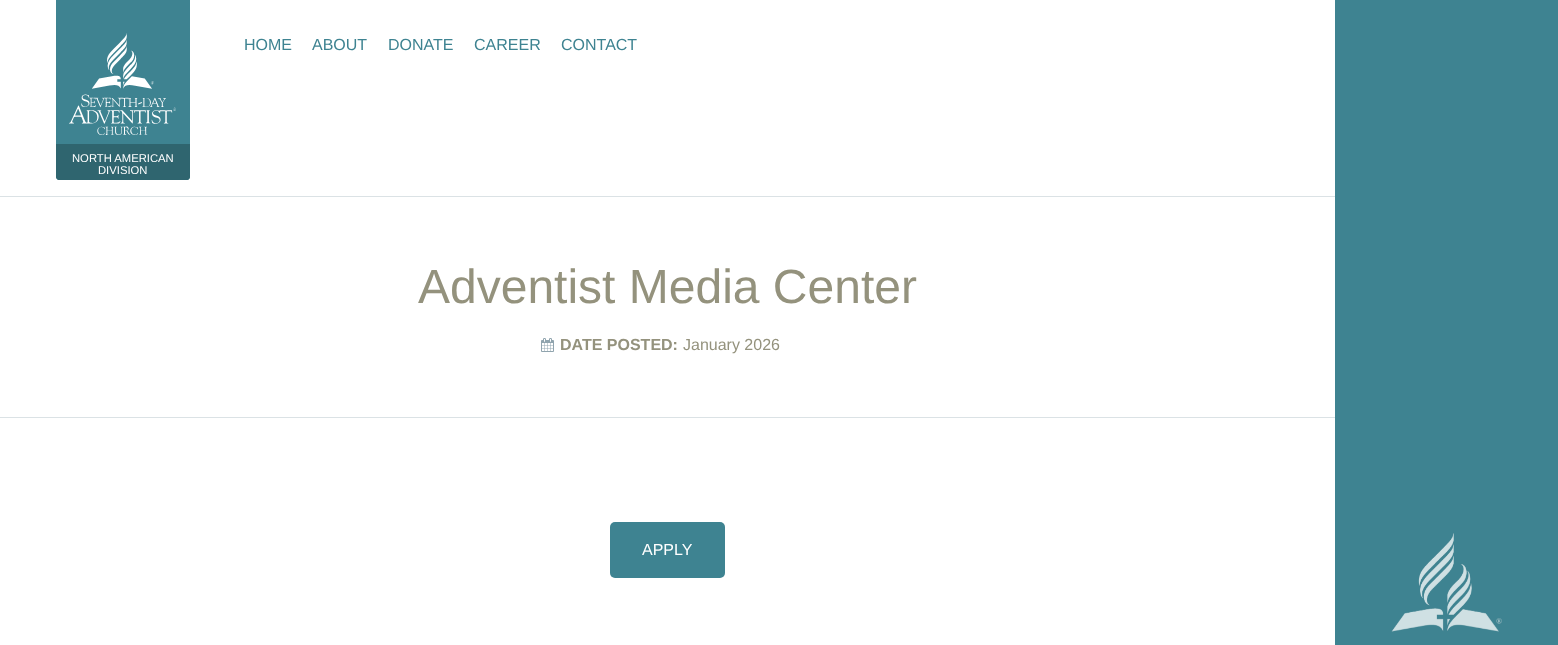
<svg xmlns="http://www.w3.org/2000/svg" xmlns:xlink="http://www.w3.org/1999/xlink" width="1558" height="645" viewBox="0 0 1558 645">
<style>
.cls-1{font:16px Liberation Sans;fill:#3e8391}
.cls-2{font:11.25px Liberation Sans;fill:#ffffff}
.cls-3{font:48px Liberation Sans;fill:#94927d}
.cls-4{font:bold 16px Liberation Sans;fill:#94927d}
.cls-5{font:16px Liberation Sans;fill:#94927d}
.cls-6{font:16px Liberation Sans;fill:#ffffff}
</style>
<rect width="100%" height="100%" fill="#ffffff"/>
<path fill="#3e8391" d="M56 0H190V177C190 178.5 188.5 180 187 180H59C57.5 180 56 178.5 56 177Z"/>
<image xlink:href="image0.png" x="69" y="33" width="107" height="102"/>
<path fill="#2f656f" d="M56 144H190V177C190 178.5 188.5 180 187 180H59C57.5 180 56 178.5 56 177Z"/>
<rect fill="#3e8391" x="1335" y="0" width="223" height="645"/>
<image xlink:href="image1.png" x="1391" y="533" width="111" height="99"/>
<rect fill="#dbe2e5" x="0" y="196" width="1335" height="1"/>
<image xlink:href="image2.png" x="541" y="338" width="13" height="14"/>
<rect fill="#dbe2e5" x="0" y="417" width="1335" height="1"/>
<rect fill="#3e8391" x="610" y="522" width="115" height="56" rx="5"/>
<text class="cls-1" x="244" y="50">HOME</text>
<text class="cls-1" x="312" y="50">ABOUT</text>
<text class="cls-1" x="388" y="50">DONATE</text>
<text class="cls-1" x="474" y="50">CAREER</text>
<text class="cls-1" x="561" y="50">CONTACT</text>
<text class="cls-2" x="72" y="162">NORTH AMERICAN</text>
<text class="cls-2" x="98" y="174">DIVISION</text>
<text class="cls-3" x="418" y="303">Adventist Media Center</text>
<text class="cls-4" x="560" y="350">DATE POSTED:</text>
<text class="cls-5" x="683" y="350">January 2026</text>
<text class="cls-6" x="642" y="555">APPLY</text>
</svg>
